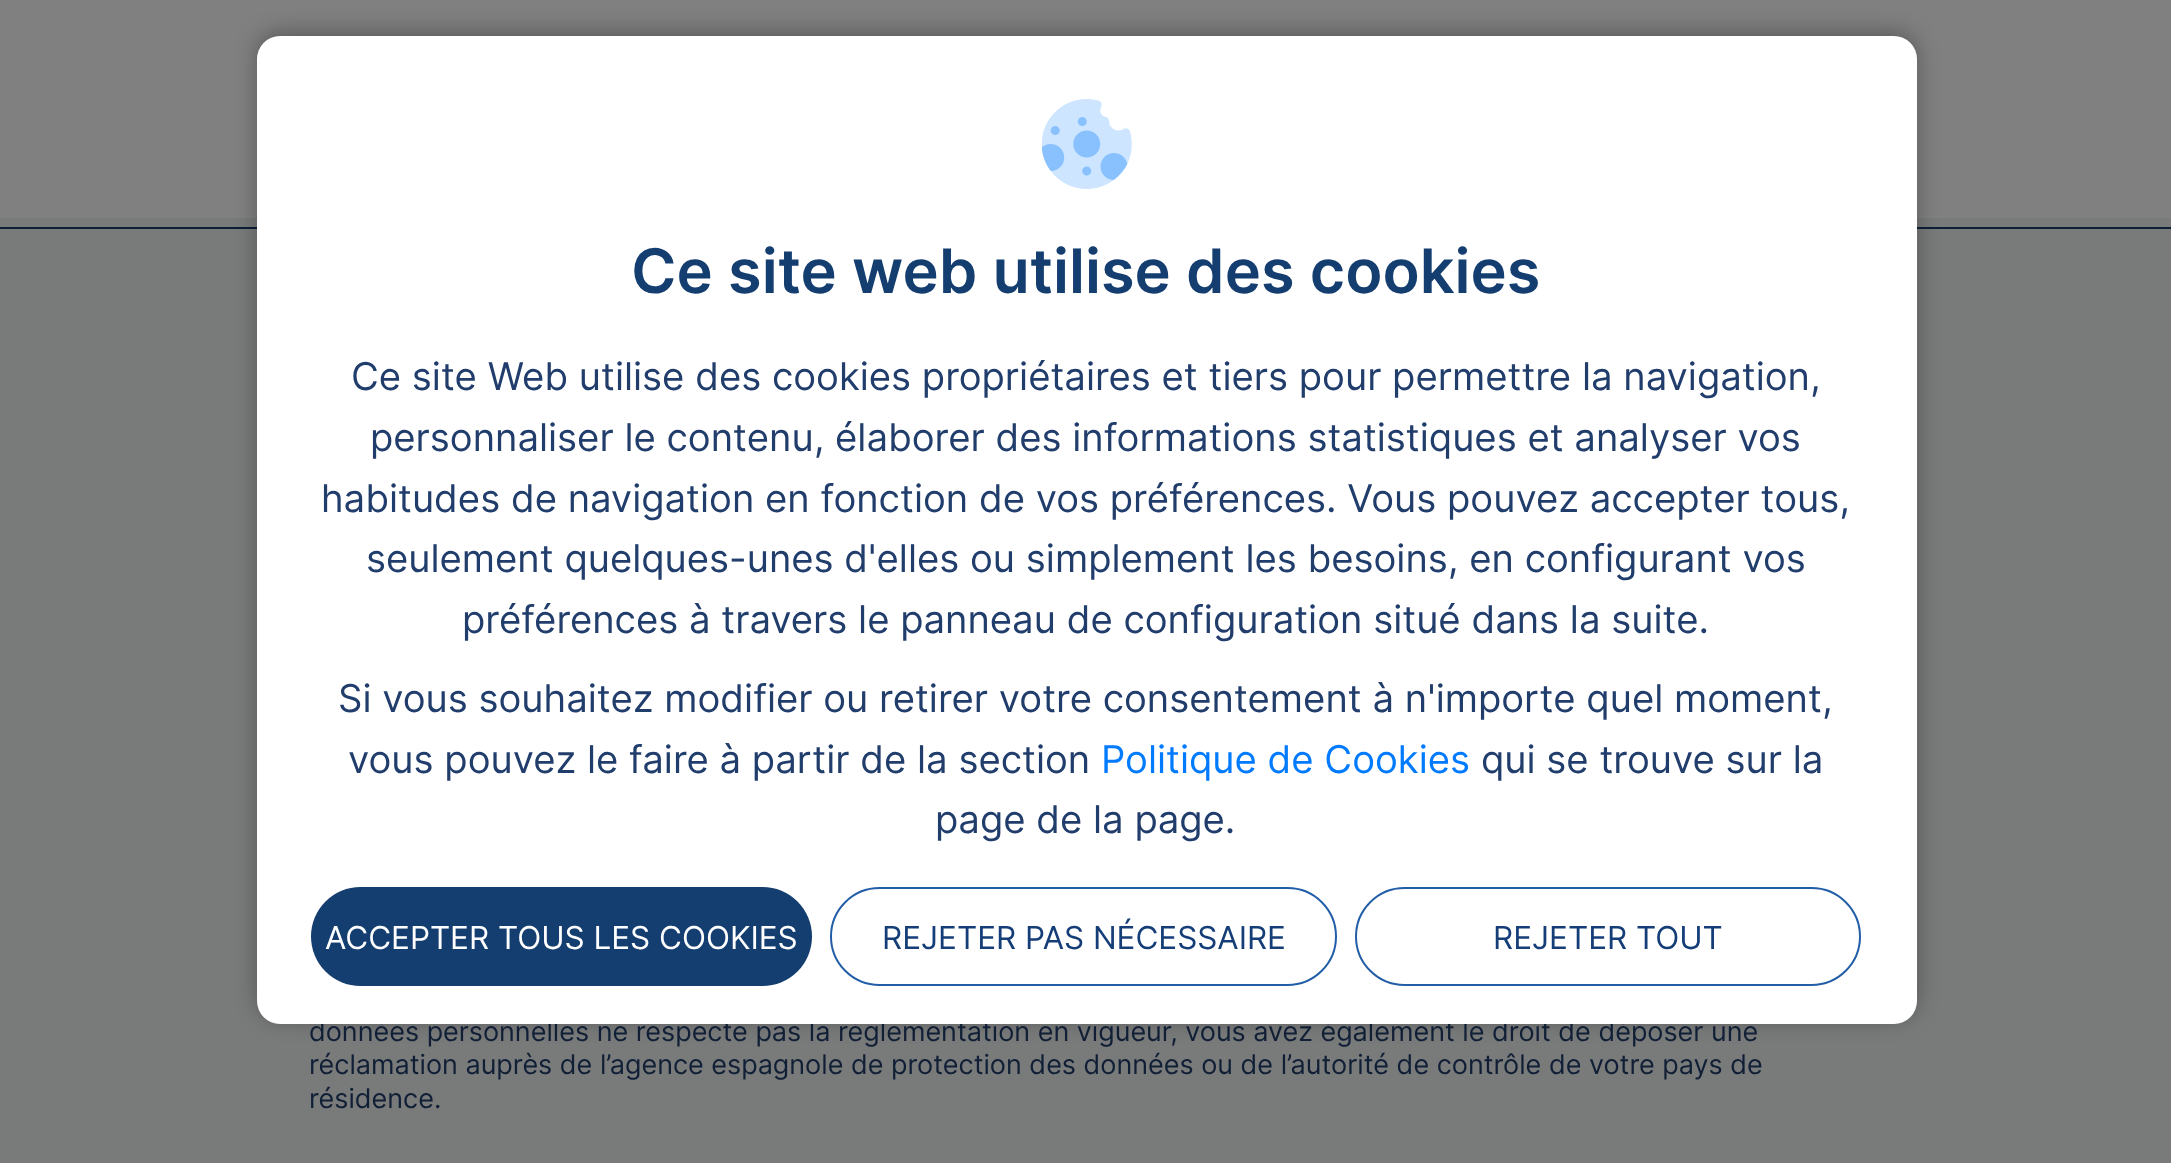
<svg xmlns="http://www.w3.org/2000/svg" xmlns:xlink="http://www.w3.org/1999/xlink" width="2171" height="1163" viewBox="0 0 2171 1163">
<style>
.cls-1{font:27px Inter;fill:#101f36}
.cls-2{font:31.5px Inter;fill:#153e78}
.cls-3{font:31.5px Inter;fill:#ffffff}
.cls-4{font:38.25px Inter;fill:#203d6c}
.cls-5{font:38.25px Inter;fill:#007bff}
.cls-6{font:600 61.25px Inter;fill:#153e70}
</style>
<rect width="100%" height="100%" fill="#797a7a"/>
<rect fill="#808080" x="0" y="0" width="2171" height="218"/>
<rect fill="#0b1f38" x="0" y="227" width="2171" height="2"/>
<rect fill="#000000" fill-opacity="0.3" filter="blur(11px)" x="257" y="32" width="1660" height="987" rx="23"/>
<text class="cls-1" x="309" y="1041">données personnelles ne respecte pas la réglementation en vigueur, vous avez également le droit de déposer une</text>
<rect fill="#ffffff" x="257" y="36" width="1660" height="988" rx="23"/>
<image xlink:href="image0.png" x="1042" y="99" width="90" height="90"/>
<rect fill="none" stroke="#225ea7" stroke-width="2" x="1356" y="888" width="504" height="97" rx="48.5"/>
<text class="cls-2" x="1493" y="949">REJETER TOUT</text>
<rect fill="none" stroke="#225ea7" stroke-width="2" x="831" y="888" width="505" height="97" rx="48.5"/>
<text class="cls-2" x="882" y="949">REJETER PAS NÉCESSAIRE</text>
<rect fill="#153e70" x="311" y="887" width="501" height="99" rx="49.5"/>
<text class="cls-3" x="325" y="949">ACCEPTER TOUS LES COOKIES</text>
<text class="cls-4" x="935" y="833">page de la page.</text>
<text class="cls-4" x="1481" y="773">qui se trouve sur la</text>
<text class="cls-5" x="1101" y="773">Politique de Cookies</text>
<text class="cls-4" x="348" y="773">vous pouvez le faire à partir de la section</text>
<text class="cls-4" x="338" y="712">Si vous souhaitez modifier ou retirer votre consentement à n'importe quel moment,</text>
<text class="cls-4" x="462" y="633">préférences à travers le panneau de configuration situé dans la suite.</text>
<text class="cls-4" x="366" y="572">seulement quelques-unes d'elles ou simplement les besoins, en configurant vos</text>
<text class="cls-4" x="321" y="512">habitudes de navigation en fonction de vos préférences. Vous pouvez accepter tous,</text>
<text class="cls-4" x="370" y="451">personnaliser le contenu, élaborer des informations statistiques et analyser vos</text>
<text class="cls-4" x="351" y="390">Ce site Web utilise des cookies propriétaires et tiers pour permettre la navigation,</text>
<text class="cls-6" x="631" y="293">Ce site web utilise des cookies</text>
<text class="cls-1"><tspan x="309" y="1074">réclamation auprès de l’agence espagnole de protection des données ou de l’autorité de contrôle de votre pays de</tspan><tspan x="309" y="1108">résidence.</tspan></text>
</svg>
